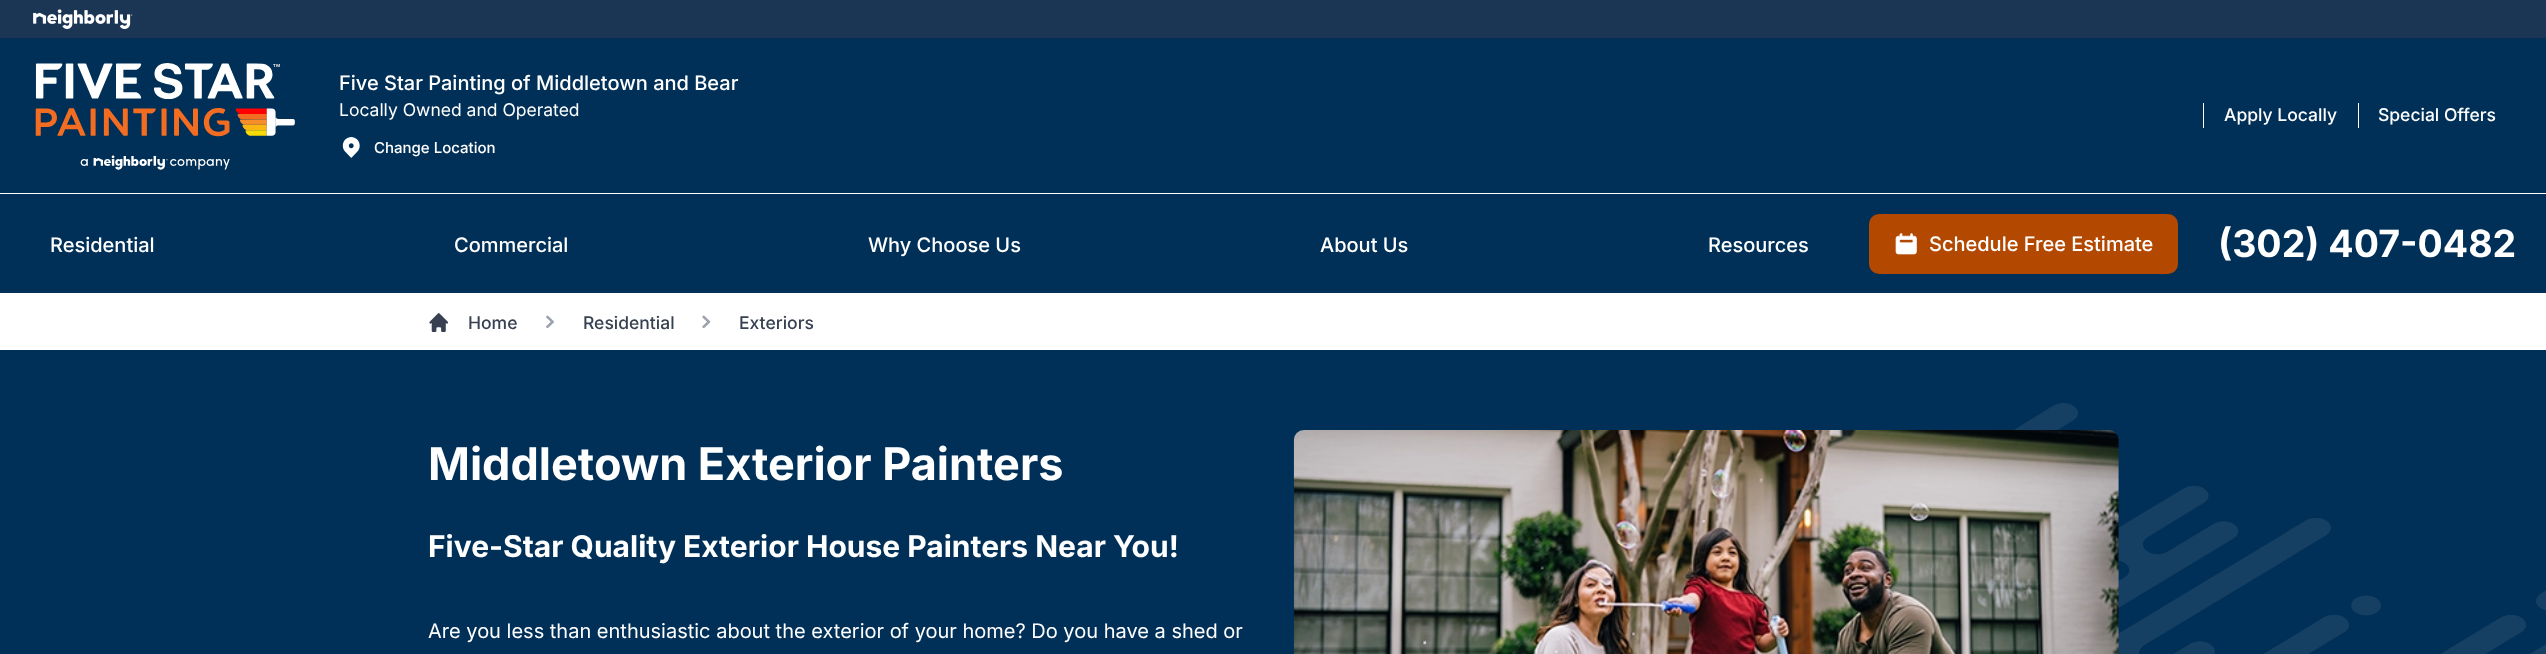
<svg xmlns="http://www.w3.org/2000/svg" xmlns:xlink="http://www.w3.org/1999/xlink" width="2546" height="654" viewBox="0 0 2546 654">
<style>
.cls-1{font:500 20px Inter;fill:#ffffff}
.cls-2{font:17.5px Inter;fill:#ffffff}
.cls-3{font:500 15px Inter;fill:#ffffff}
.cls-4{font:500 17.5px Inter;fill:#ffffff}
.cls-5{font:bold 37.5px Inter;fill:#ffffff}
.cls-6{font:500 17.5px Inter;fill:#374151}
.cls-7{font:bold 45px Inter;fill:#ffffff}
.cls-8{font:bold 30px Inter;fill:#ffffff}
.cls-9{font:20px Inter;fill:#ffffff}
</style>
<rect width="100%" height="100%" fill="#ffffff"/>
<rect fill="#1b3554" x="0" y="0" width="2546" height="38"/>
<image xlink:href="image0.png" x="33" y="9" width="100" height="20"/>
<rect fill="#003057" x="0" y="38" width="2546" height="155"/>
<image xlink:href="image1.png" x="35" y="63" width="260" height="107"/>
<image xlink:href="image2.png" x="342" y="137" width="18" height="21"/>
<rect fill="#ffffff" x="2203" y="103" width="1" height="25"/>
<rect fill="#ffffff" x="2358" y="103" width="1" height="25"/>
<rect fill="#003057" x="0" y="194" width="2546" height="99"/>
<rect fill="#b34900" x="1869" y="214" width="309" height="60" rx="10"/>
<image xlink:href="image3.png" x="1895" y="233" width="22" height="22"/>
<image xlink:href="image4.png" x="429" y="313" width="20" height="19"/>
<image xlink:href="image5.png" x="546" y="315" width="8" height="13"/>
<image xlink:href="image6.png" x="702" y="315" width="9" height="13"/>
<rect fill="#003057" x="0" y="350" width="2546" height="304"/>
<image xlink:href="image7.png" x="2014" y="403" width="532" height="251"/>
<image xlink:href="image8.png" x="1293" y="430" width="826" height="224"/>
<text class="cls-1" x="339" y="90">Five Star Painting of Middletown and Bear</text>
<text class="cls-2" x="339" y="116">Locally Owned and Operated</text>
<text class="cls-3" x="374" y="153">Change Location</text>
<text class="cls-4" x="2224" y="121">Apply Locally</text>
<text class="cls-4" x="2378" y="121">Special Offers</text>
<text class="cls-1" x="50" y="252">Residential</text>
<text class="cls-1" x="454" y="252">Commercial</text>
<text class="cls-1" x="868" y="252">Why Choose Us</text>
<text class="cls-1" x="1320" y="252">About Us</text>
<text class="cls-1" x="1708" y="252">Resources</text>
<text class="cls-1" x="1929" y="251">Schedule Free Estimate</text>
<text class="cls-5" x="2218" y="257">(302) 407-0482</text>
<text class="cls-6" x="468" y="329">Home</text>
<text class="cls-6" x="583" y="329">Residential</text>
<text class="cls-6" x="739" y="329">Exteriors</text>
<text class="cls-7" x="428" y="480">Middletown Exterior Painters</text>
<text class="cls-8" x="428" y="557">Five-Star Quality Exterior House Painters Near You!</text>
<text class="cls-9" x="428" y="638">Are you less than enthusiastic about the exterior of your home? Do you have a shed or</text>
</svg>
